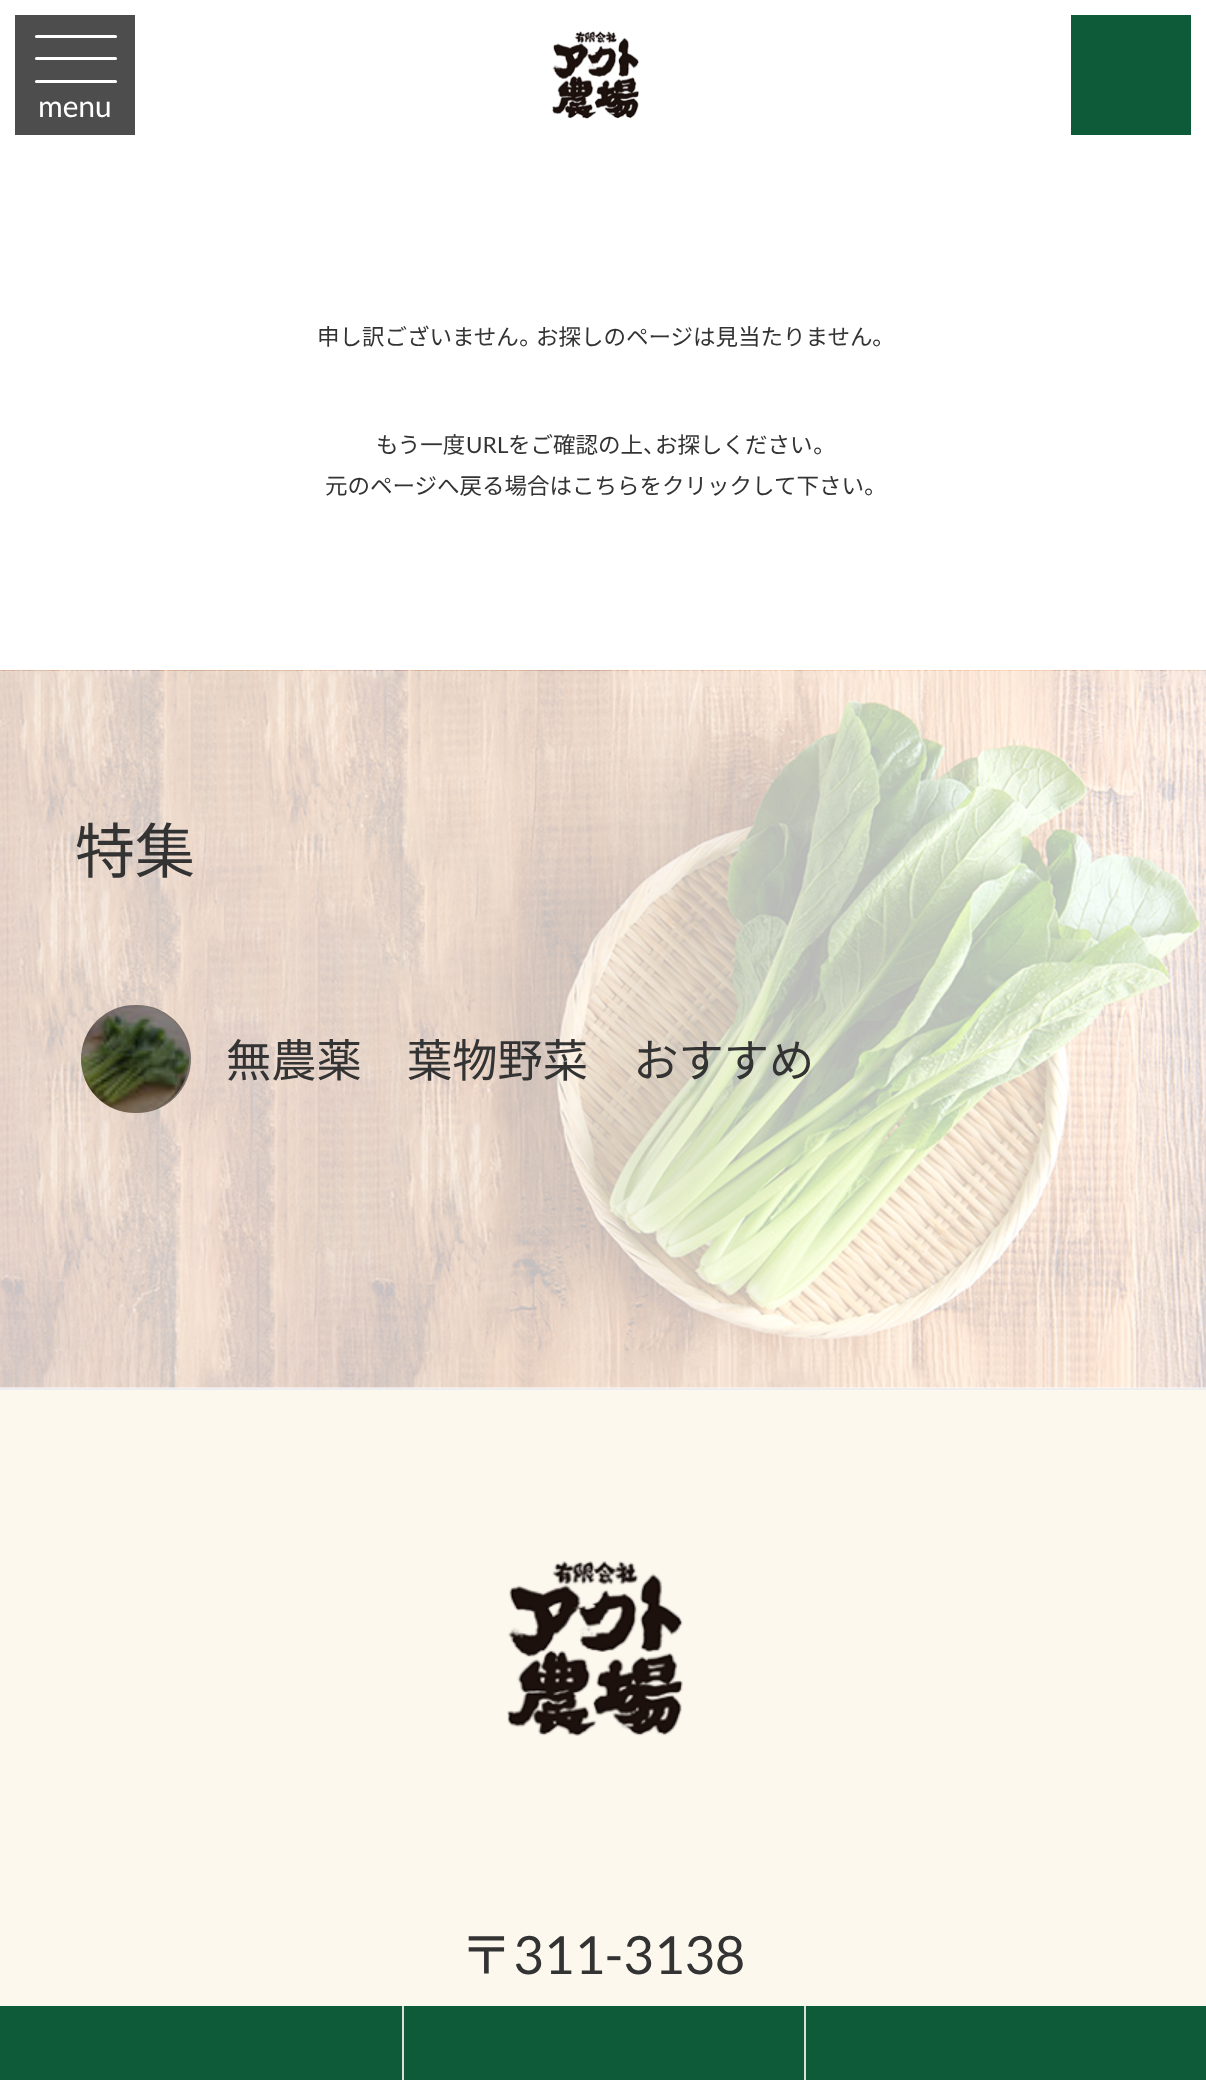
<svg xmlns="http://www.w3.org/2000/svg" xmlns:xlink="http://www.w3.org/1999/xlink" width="1206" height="2080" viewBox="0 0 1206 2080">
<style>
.cls-1{font:30px Lato;fill:#ffffff}
.cls-2{font:22.5px Noto Sans JP;fill:#333333}
.cls-3{font:22.5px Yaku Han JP;fill:#333333}
.cls-4{font:22.5px Lato;fill:#333333}
.cls-5{font:60px Noto Sans JP;fill:#333333}
.cls-6{font:45.25px Noto Sans JP;fill:#333333}
.cls-7{font:52.75px Noto Sans JP;fill:#333333}
.cls-8{font:52.75px Lato;fill:#333333}
</style>
<rect width="100%" height="100%" fill="#ffffff"/>
<rect fill="#4d4d4d" x="15" y="15" width="120" height="120"/>
<rect fill="#ffffff" x="35" y="35" width="82" height="3" rx="1.5"/>
<rect fill="#ffffff" x="35" y="57" width="82" height="3" rx="1.5"/>
<rect fill="#ffffff" x="35" y="80" width="82" height="3" rx="1.5"/>
<image xlink:href="image0.png" x="552" y="31" width="87" height="88"/>
<rect fill="#0e5b3a" x="1071" y="15" width="120" height="120"/>
<image xlink:href="image1.png" x="0" y="670" width="1206" height="718"/>
<image xlink:href="image2.png" x="81" y="1005" width="108" height="108"/>
<rect fill="#0a0a0a" fill-opacity="0.5" x="81" y="1005" width="110" height="108" rx="54"/>
<rect fill="#eeeeee" x="0" y="1388" width="1206" height="2"/>
<rect fill="#fcf8ee" x="0" y="1390" width="1206" height="616"/>
<image xlink:href="image3.png" x="507" y="1561" width="176" height="175"/>
<rect fill="#0e5b3a" x="0" y="2006" width="402" height="74"/>
<rect fill="#0e5b3a" x="404" y="2006" width="400" height="74"/>
<rect fill="#dddddd" x="402" y="2006" width="2" height="74"/>
<rect fill="#0e5b3a" x="806" y="2006" width="400" height="74"/>
<rect fill="#dddddd" x="804" y="2006" width="2" height="74"/>
<text class="cls-1" x="38" y="117">menu</text>
<text class="cls-2" x="317" y="345">申し訳ございません</text>
<text class="cls-3" x="519" y="345">。</text>
<text class="cls-2" x="536" y="345">お探しのページは見当たりません</text>
<text class="cls-3" x="872" y="345">。</text>
<text class="cls-2" x="376" y="453">もう一度</text>
<text class="cls-4" x="466" y="453">URL</text>
<text class="cls-2" x="508" y="453">をご確認の上</text>
<text class="cls-3" x="643" y="453">、</text>
<text class="cls-2" x="655" y="453">お探しください</text>
<text class="cls-3" x="813" y="453">。</text>
<text class="cls-2" x="325" y="494">元のページへ戻る場合はこちらをクリックして下さい</text>
<text class="cls-3" x="864" y="494">。</text>
<text class="cls-5" x="75" y="873">特集</text>
<text class="cls-6" x="226" y="1077">無農薬　葉物野菜　おすすめ</text>
<text class="cls-7" x="460" y="1974">〒</text>
<text class="cls-8" x="513" y="1974">311-3138</text>
</svg>
